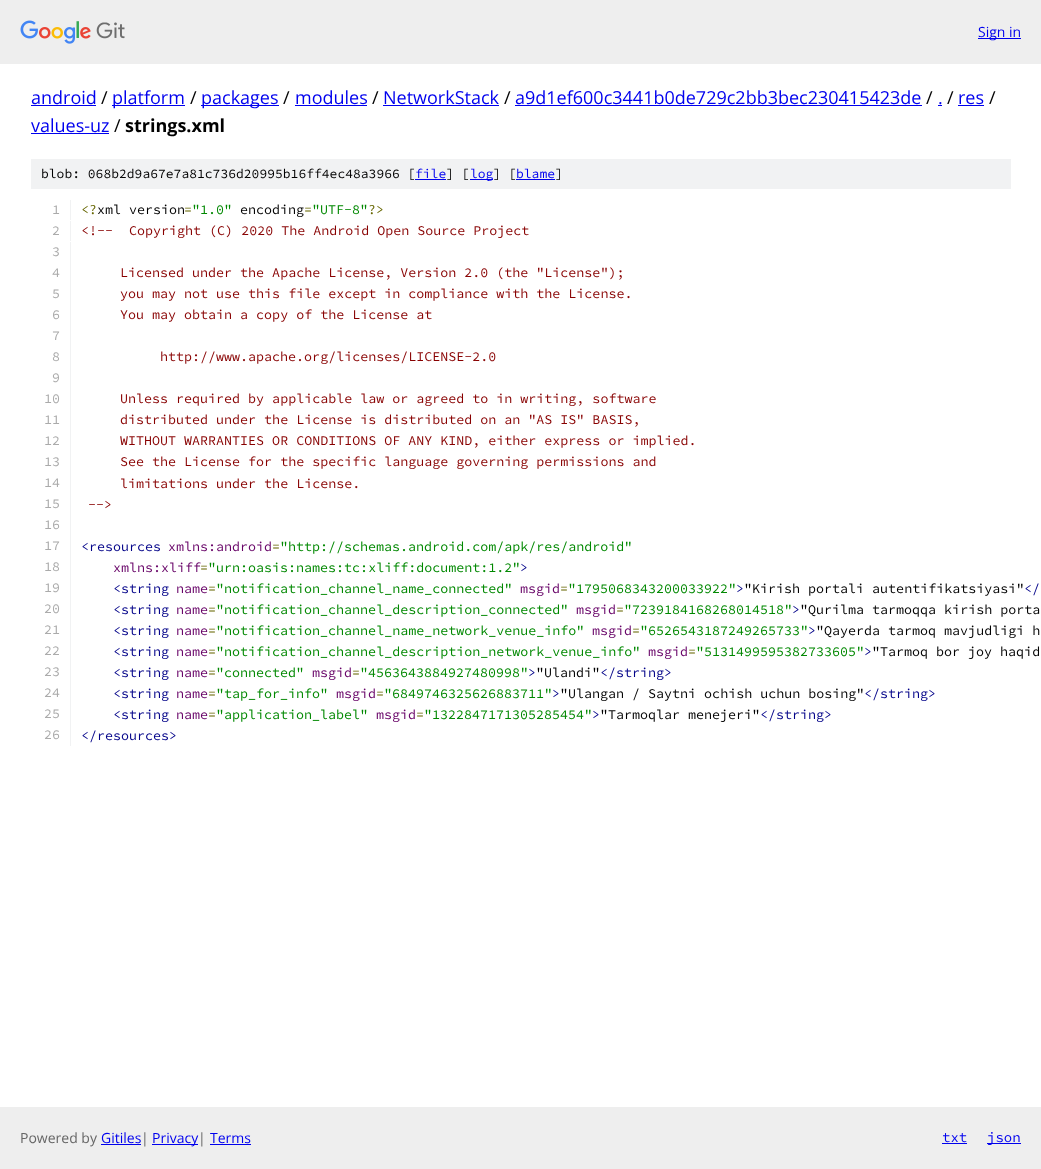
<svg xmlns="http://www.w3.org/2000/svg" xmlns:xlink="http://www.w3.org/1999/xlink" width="1041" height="1169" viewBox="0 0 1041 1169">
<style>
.cls-1{font:14px Open Sans;fill:#0000ee}
.cls-2{font:18px Open Sans;fill:#0000ee}
.cls-3{font:18px Open Sans;fill:#000000}
.cls-4{font:bold 18px Open Sans;fill:#000000}
.cls-5{font:200 13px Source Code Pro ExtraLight;fill:#000000}
.cls-6{font:200 13px Source Code Pro ExtraLight;fill:#0000ee}
.cls-7{font:200 13.35px Source Code Pro ExtraLight;fill:#aaaaaa}
.cls-8{font:200 13.35px Source Code Pro ExtraLight;fill:#666600}
.cls-9{font:200 13.35px Source Code Pro ExtraLight;fill:#000000}
.cls-10{font:200 13.35px Source Code Pro ExtraLight;fill:#008800}
.cls-11{font:200 13.35px Source Code Pro ExtraLight;fill:#880000}
.cls-12{font:200 13.35px Source Code Pro ExtraLight;fill:#000088}
.cls-13{font:200 13.35px Source Code Pro ExtraLight;fill:#660066}
.cls-14{font:14px Open Sans;fill:#666666}
.cls-15{font:200 14px Source Code Pro ExtraLight;fill:#0000ee}
</style>
<rect width="100%" height="100%" fill="#ffffff"/>
<rect fill="#eeeeee" x="0" y="0" width="1041" height="64"/>
<image xlink:href="image0.png" x="20" y="20" width="105" height="24"/>
<rect fill="#0000ee" x="978" y="38" width="43" height="1"/>
<rect fill="#0000ee" x="31" y="105" width="65" height="1"/>
<rect fill="#0000ee" x="112" y="105" width="73" height="1"/>
<rect fill="#0000ee" x="201" y="105" width="78" height="1"/>
<rect fill="#0000ee" x="295" y="105" width="72" height="1"/>
<rect fill="#0000ee" x="383" y="105" width="116" height="1"/>
<rect fill="#0000ee" x="515" y="105" width="407" height="1"/>
<rect fill="#0000ee" x="938" y="105" width="4" height="1"/>
<rect fill="#0000ee" x="958" y="105" width="26" height="1"/>
<rect fill="#0000ee" x="31" y="133" width="78" height="1"/>
<rect fill="#f1f2f3" x="31" y="159" width="980" height="30"/>
<rect fill="#0000ee" x="415" y="179" width="31" height="1"/>
<rect fill="#0000ee" x="470" y="179" width="23" height="1"/>
<rect fill="#0000ee" x="516" y="179" width="39" height="1"/>
<rect fill="#f1f2f3" x="70" y="200" width="1" height="20"/>
<rect fill="#f1f2f3" x="70" y="221" width="1" height="20"/>
<rect fill="#f1f2f3" x="70" y="242" width="1" height="504"/>
<rect fill="#eeeeee" x="0" y="1107" width="1041" height="62"/>
<rect fill="#0000ee" x="101" y="1144" width="40" height="1"/>
<rect fill="#0000ee" x="152" y="1144" width="46" height="1"/>
<rect fill="#0000ee" x="210" y="1144" width="41" height="1"/>
<rect fill="#0000ee" x="942" y="1143" width="25" height="1"/>
<rect fill="#0000ee" x="987" y="1143" width="34" height="1"/>
<text class="cls-1" x="978" y="37">Sign in</text>
<text class="cls-2" x="31" y="104">android</text>
<text class="cls-3" x="101" y="104">/</text>
<text class="cls-2" x="112" y="104">platform</text>
<text class="cls-3" x="190" y="104">/</text>
<text class="cls-2" x="201" y="104">packages</text>
<text class="cls-3" x="283" y="104">/</text>
<text class="cls-2" x="295" y="104">modules</text>
<text class="cls-3" x="372" y="104">/</text>
<text class="cls-2" x="383" y="104">NetworkStack</text>
<text class="cls-3" x="504" y="104">/</text>
<text class="cls-2" x="515" y="104">a9d1ef600c3441b0de729c2bb3bec230415423de</text>
<text class="cls-3" x="926" y="104">/</text>
<text class="cls-2" x="938" y="104">.</text>
<text class="cls-3" x="947" y="104">/</text>
<text class="cls-2" x="958" y="104">res</text>
<text class="cls-3" x="989" y="104">/</text>
<text class="cls-2" x="31" y="132">values-uz</text>
<text class="cls-3" x="114" y="132">/</text>
<text class="cls-4" x="125" y="132">strings.xml</text>
<text class="cls-5" x="41" y="178">blob: 068b2d9a67e7a81c736d20995b16ff4ec48a3966 [</text>
<text class="cls-6" x="415" y="178">file</text>
<text class="cls-5" x="446" y="178">] [</text>
<text class="cls-6" x="470" y="178">log</text>
<text class="cls-5" x="493" y="178">] [</text>
<text class="cls-6" x="516" y="178">blame</text>
<text class="cls-5" x="555" y="178">]</text>
<text class="cls-7" x="52" y="214">1</text>
<text class="cls-8" x="81" y="214">&lt;?</text>
<text class="cls-9" x="97" y="214">xml version</text>
<text class="cls-8" x="184" y="214">=</text>
<text class="cls-10" x="192" y="214">"1.0"</text>
<text class="cls-9" x="240" y="214">encoding</text>
<text class="cls-8" x="304" y="214">=</text>
<text class="cls-10" x="312" y="214">"UTF-8"</text>
<text class="cls-8" x="368" y="214">?&gt;</text>
<text class="cls-7" x="52" y="235">2</text>
<text class="cls-11" xml:space="preserve" x="81" y="235">&lt;!--  Copyright (C) 2020 The Android Open Source Project</text>
<text class="cls-7"><tspan x="52" y="256">3</tspan><tspan x="52" y="277">4</tspan></text>
<text class="cls-11" x="120" y="277">Licensed under the Apache License, Version 2.0 (the "License");</text>
<text class="cls-7" x="52" y="298">5</text>
<text class="cls-11" x="120" y="298">you may not use this file except in compliance with the License.</text>
<text class="cls-7" x="52" y="319">6</text>
<text class="cls-11" x="120" y="319">You may obtain a copy of the License at</text>
<text class="cls-7"><tspan x="52" y="340">7</tspan><tspan x="52" y="361">8</tspan></text>
<text class="cls-11" x="160" y="361">http://www.apache.org/licenses/LICENSE-2.0</text>
<text class="cls-7" x="52" y="382">9</text>
<text class="cls-7" x="44" y="403">10</text>
<text class="cls-11" x="120" y="403">Unless required by applicable law or agreed to in writing, software</text>
<text class="cls-7" x="44" y="424">11</text>
<text class="cls-11" x="120" y="424">distributed under the License is distributed on an "AS IS" BASIS,</text>
<text class="cls-7" x="44" y="445">12</text>
<text class="cls-11" x="120" y="445">WITHOUT WARRANTIES OR CONDITIONS OF ANY KIND, either express or implied.</text>
<text class="cls-7" x="44" y="466">13</text>
<text class="cls-11" x="120" y="466">See the License for the specific language governing permissions and</text>
<text class="cls-7" x="44" y="487">14</text>
<text class="cls-11" x="120" y="488">limitations under the License.</text>
<text class="cls-7" x="44" y="508">15</text>
<text class="cls-11" x="88" y="509">--&gt;</text>
<text class="cls-7"><tspan x="44" y="529">16</tspan><tspan x="44" y="550">17</tspan></text>
<text class="cls-12" x="81" y="551">&lt;resources</text>
<text class="cls-13" x="168" y="551">xmlns:android</text>
<text class="cls-8" x="272" y="551">=</text>
<text class="cls-10" x="280" y="551">"http://schemas.android.com/apk/res/android"</text>
<text class="cls-7" x="44" y="571">18</text>
<text class="cls-13" x="113" y="572">xmlns:xliff</text>
<text class="cls-8" x="200" y="572">=</text>
<text class="cls-10" x="208" y="572">"urn:oasis:names:tc:xliff:document:1.2"</text>
<text class="cls-12" x="520" y="572">&gt;</text>
<text class="cls-7" x="44" y="592">19</text>
<text class="cls-12" x="113" y="593">&lt;string</text>
<text class="cls-13" x="176" y="593">name</text>
<text class="cls-8" x="208" y="593">=</text>
<text class="cls-10" x="216" y="593">"notification_channel_name_connected"</text>
<text class="cls-13" x="520" y="593">msgid</text>
<text class="cls-8" x="560" y="593">=</text>
<text class="cls-10" x="568" y="593">"1795068343200033922"</text>
<text class="cls-12" x="736" y="593">&gt;</text>
<text class="cls-9" x="744" y="593">"Kirish portali autentifikatsiyasi"</text>
<text class="cls-12" x="1024" y="593">&lt;/</text>
<text class="cls-7" x="44" y="613">20</text>
<text class="cls-12" x="113" y="614">&lt;string</text>
<text class="cls-13" x="176" y="614">name</text>
<text class="cls-8" x="208" y="614">=</text>
<text class="cls-10" x="216" y="614">"notification_channel_description_connected"</text>
<text class="cls-13" x="576" y="614">msgid</text>
<text class="cls-8" x="616" y="614">=</text>
<text class="cls-10" x="624" y="614">"7239184168268014518"</text>
<text class="cls-12" x="792" y="614">&gt;</text>
<text class="cls-9" x="800" y="614">"Qurilma tarmoqqa kirish porta</text>
<text class="cls-7" x="44" y="634">21</text>
<text class="cls-12" x="113" y="635">&lt;string</text>
<text class="cls-13" x="176" y="635">name</text>
<text class="cls-8" x="208" y="635">=</text>
<text class="cls-10" x="216" y="635">"notification_channel_name_network_venue_info"</text>
<text class="cls-13" x="592" y="635">msgid</text>
<text class="cls-8" x="632" y="635">=</text>
<text class="cls-10" x="640" y="635">"6526543187249265733"</text>
<text class="cls-12" x="808" y="635">&gt;</text>
<text class="cls-9" x="816" y="635">"Qayerda tarmoq mavjudligi h</text>
<text class="cls-7" x="44" y="655">22</text>
<text class="cls-12" x="113" y="656">&lt;string</text>
<text class="cls-13" x="176" y="656">name</text>
<text class="cls-8" x="208" y="656">=</text>
<text class="cls-10" x="216" y="656">"notification_channel_description_network_venue_info"</text>
<text class="cls-13" x="648" y="656">msgid</text>
<text class="cls-8" x="688" y="656">=</text>
<text class="cls-10" x="696" y="656">"5131499595382733605"</text>
<text class="cls-12" x="864" y="656">&gt;</text>
<text class="cls-9" x="872" y="656">"Tarmoq bor joy haqid</text>
<text class="cls-7" x="44" y="676">23</text>
<text class="cls-12" x="113" y="677">&lt;string</text>
<text class="cls-13" x="176" y="677">name</text>
<text class="cls-8" x="208" y="677">=</text>
<text class="cls-10" x="216" y="677">"connected"</text>
<text class="cls-13" x="312" y="677">msgid</text>
<text class="cls-8" x="352" y="677">=</text>
<text class="cls-10" x="360" y="677">"4563643884927480998"</text>
<text class="cls-12" x="528" y="677">&gt;</text>
<text class="cls-9" x="536" y="677">"Ulandi"</text>
<text class="cls-12" x="600" y="677">&lt;/string&gt;</text>
<text class="cls-7" x="44" y="697">24</text>
<text class="cls-12" x="113" y="698">&lt;string</text>
<text class="cls-13" x="176" y="698">name</text>
<text class="cls-8" x="208" y="698">=</text>
<text class="cls-10" x="216" y="698">"tap_for_info"</text>
<text class="cls-13" x="336" y="698">msgid</text>
<text class="cls-8" x="376" y="698">=</text>
<text class="cls-10" x="384" y="698">"6849746325626883711"</text>
<text class="cls-12" x="552" y="698">&gt;</text>
<text class="cls-9" x="560" y="698">"Ulangan / Saytni ochish uchun bosing"</text>
<text class="cls-12" x="864" y="698">&lt;/string&gt;</text>
<text class="cls-7" x="44" y="718">25</text>
<text class="cls-12" x="113" y="719">&lt;string</text>
<text class="cls-13" x="176" y="719">name</text>
<text class="cls-8" x="208" y="719">=</text>
<text class="cls-10" x="216" y="719">"application_label"</text>
<text class="cls-13" x="376" y="719">msgid</text>
<text class="cls-8" x="416" y="719">=</text>
<text class="cls-10" x="424" y="719">"1322847171305285454"</text>
<text class="cls-12" x="592" y="719">&gt;</text>
<text class="cls-9" x="600" y="719">"Tarmoqlar menejeri"</text>
<text class="cls-12" x="760" y="719">&lt;/string&gt;</text>
<text class="cls-7" x="44" y="739">26</text>
<text class="cls-12" x="81" y="740">&lt;/resources&gt;</text>
<text class="cls-14" x="20" y="1143">Powered by</text>
<text class="cls-1" x="101" y="1143">Gitiles</text>
<text class="cls-14" x="141" y="1143">|</text>
<text class="cls-1" x="152" y="1143">Privacy</text>
<text class="cls-14" x="198" y="1143">|</text>
<text class="cls-1" x="210" y="1143">Terms</text>
<text class="cls-15" x="942" y="1142">txt</text>
<text class="cls-15" x="987" y="1142">json</text>
</svg>
